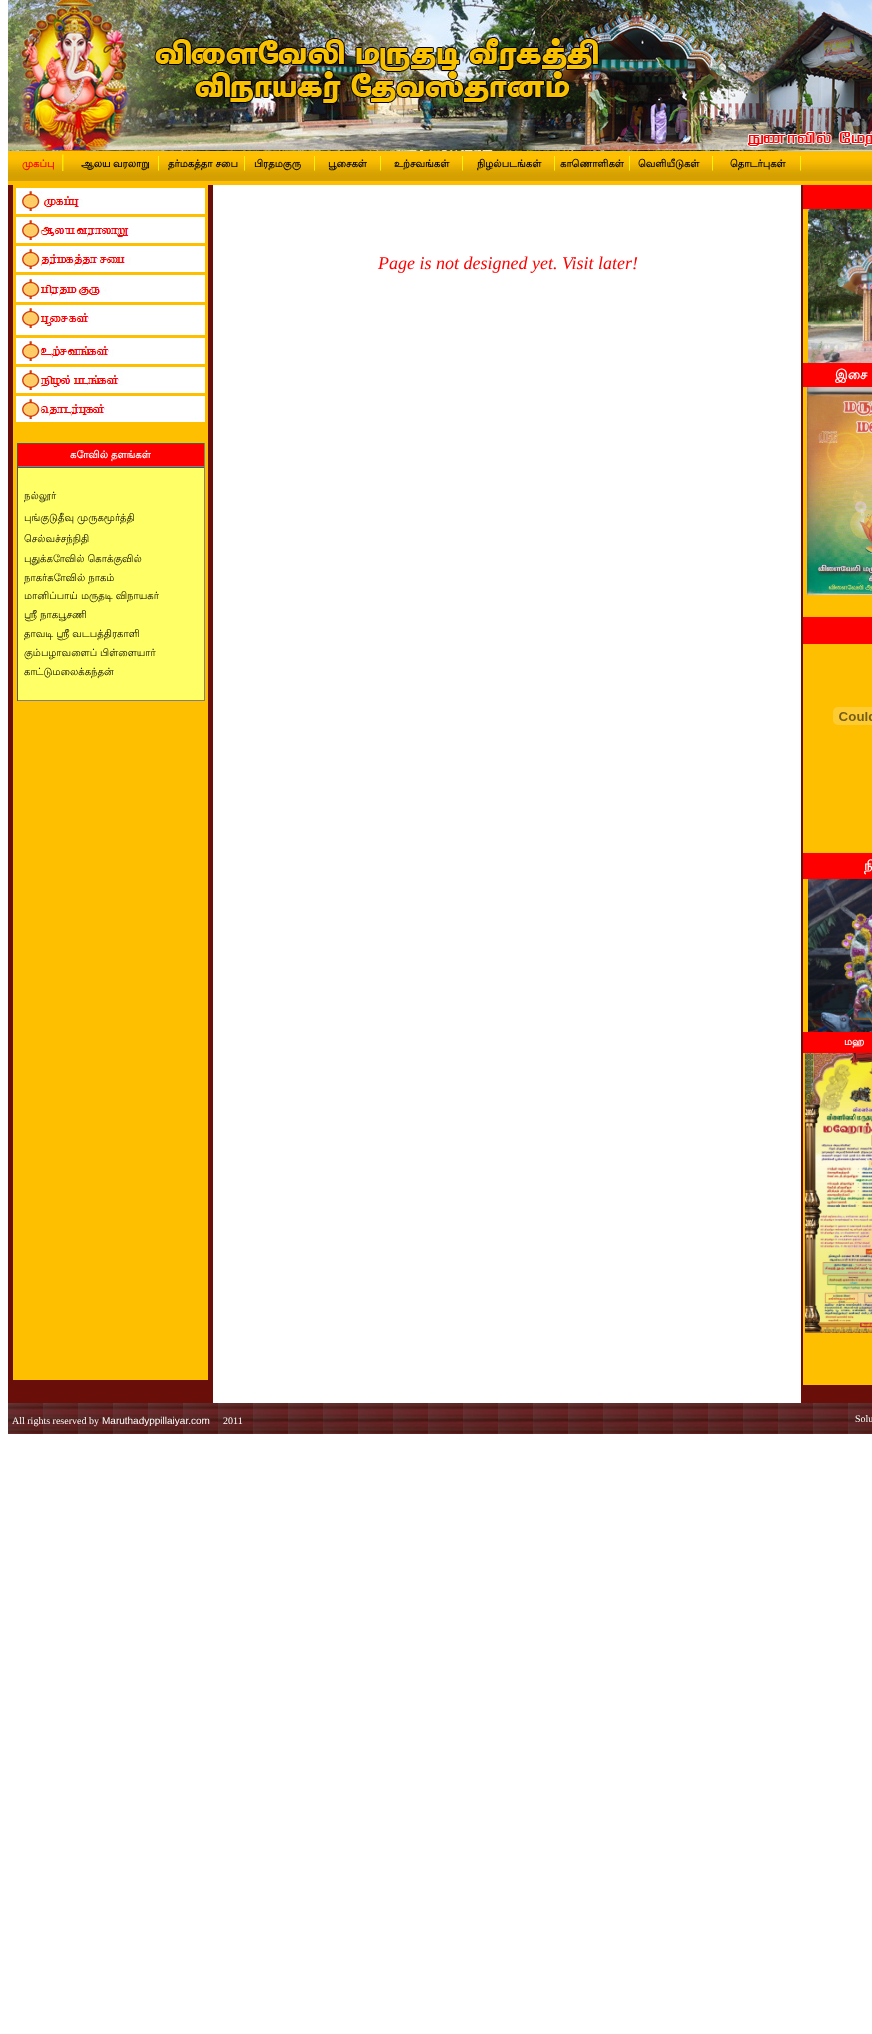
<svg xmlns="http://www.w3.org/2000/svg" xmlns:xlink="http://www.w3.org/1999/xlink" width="872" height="2034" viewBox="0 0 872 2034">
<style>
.cls-1{font:bold 10px Lohit Tamil;fill:#ff0000}
.cls-2{font:18px Liberation Serif;fill:#ffff00}
.cls-3{font:bold 10px Lohit Tamil;fill:#000000}
.cls-4{font:16px Liberation Serif;fill:#ffff00}
.cls-5{font:italic 18px Liberation Serif;fill:#ff0000}
.cls-6{font:bold 10px Lohit Tamil;fill:#ffffff}
.cls-7{font:10px Lohit Tamil;fill:#000000}
.cls-8{font:bold 13px Lohit Tamil;fill:#ffffff}
.cls-9{font:10px Liberation Serif;fill:#ffffff}
.cls-10{font:10px Liberation Sans;fill:#ffffff}
</style>
<rect width="100%" height="100%" fill="#ffffff"/>
<image xlink:href="image0.png" x="8" y="0" width="864" height="151"/>
<image xlink:href="image1.png" x="8" y="151" width="864" height="34"/>
<rect fill="#6a0e0a" x="8" y="185" width="205" height="1218"/>
<rect fill="#febf01" x="13" y="185" width="195" height="1195"/>
<rect fill="#ffffff" x="16" y="188" width="189" height="26"/>
<image xlink:href="image2.png" x="19" y="191" width="64" height="20"/>
<rect fill="#ffffff" x="16" y="217" width="189" height="26"/>
<image xlink:href="image3.png" x="19" y="220" width="112" height="20"/>
<rect fill="#ffffff" x="16" y="246" width="189" height="26"/>
<image xlink:href="image4.png" x="19" y="249" width="112" height="20"/>
<rect fill="#ffffff" x="16" y="275" width="189" height="27"/>
<image xlink:href="image5.png" x="19" y="279" width="88" height="20"/>
<rect fill="#ffffff" x="16" y="305" width="189" height="30"/>
<image xlink:href="image6.png" x="19" y="308" width="72" height="20"/>
<rect fill="#ffffff" x="16" y="338" width="189" height="26"/>
<image xlink:href="image7.png" x="19" y="341" width="95" height="20"/>
<rect fill="#ffffff" x="16" y="367" width="189" height="26"/>
<image xlink:href="image8.png" x="19" y="370" width="104" height="20"/>
<rect fill="#ffffff" x="16" y="396" width="189" height="26"/>
<image xlink:href="image9.png" x="19" y="399" width="88" height="20"/>
<rect fill="#ff0000" x="18" y="444" width="186" height="22"/>
<rect fill="#555555" x="17" y="443" width="188" height="1"/>
<rect fill="#808080" x="204" y="443" width="1" height="24"/>
<rect fill="#808080" x="17" y="466" width="188" height="1"/>
<rect fill="#555555" x="17" y="443" width="1" height="24"/>
<rect fill="#ffff66" x="18" y="468" width="186" height="232"/>
<rect fill="#555555" x="17" y="467" width="188" height="1"/>
<rect fill="#808080" x="204" y="467" width="1" height="234"/>
<rect fill="#808080" x="17" y="700" width="188" height="1"/>
<rect fill="#555555" x="17" y="467" width="1" height="234"/>
<rect fill="#6a0e0a" x="801" y="185" width="71" height="1218"/>
<rect fill="#febf01" x="803" y="209" width="69" height="1176"/>
<rect fill="#ff0000" x="803" y="185" width="69" height="24"/>
<image xlink:href="image10.png" x="808" y="209" width="64" height="154"/>
<rect fill="#ff0000" x="803" y="363" width="69" height="24"/>
<image xlink:href="image11.png" x="807" y="387" width="65" height="208"/>
<rect fill="#ff0000" x="803" y="617" width="69" height="27"/>
<image xlink:href="image12.png" x="833" y="707" width="39" height="18"/>
<rect fill="#ff0000" x="803" y="853" width="69" height="26"/>
<image xlink:href="image13.png" x="808" y="879" width="64" height="153"/>
<rect fill="#ff0000" x="803" y="1032" width="69" height="21"/>
<image xlink:href="image14.png" x="805" y="1053" width="67" height="280"/>
<image xlink:href="image15.png" x="8" y="1403" width="864" height="31"/>
<text class="cls-1" x="22" y="167">முகப்பு</text>
<text class="cls-2" x="61" y="167">|</text>
<text class="cls-3" x="81" y="167">ஆலய</text>
<text class="cls-3" x="113" y="167">வரலாறு</text>
<text class="cls-4" x="157" y="167">|</text>
<text class="cls-3" x="168" y="167">தர்மகத்தா சபை</text>
<text class="cls-4" x="243" y="167">|</text>
<text class="cls-3" x="254" y="167">பிரதமகுரு</text>
<text class="cls-4" x="313" y="167">|</text>
<text class="cls-3" x="328" y="167">பூசைகள்</text>
<text class="cls-4" x="379" y="167">|</text>
<text class="cls-3" x="394" y="167">உற்சவங்கள்</text>
<text class="cls-4" x="461" y="167">|</text>
<text class="cls-3" x="477" y="167">நிழல்படங்கள்</text>
<text class="cls-4" x="553" y="167">|</text>
<text class="cls-3" x="560" y="167">காணொளிகள்</text>
<text class="cls-4" x="628" y="167">|</text>
<text class="cls-3" x="638" y="167">வெளியீடுகள்</text>
<text class="cls-4" x="711" y="167">|</text>
<text class="cls-3" x="730" y="167">தொடர்புகள்</text>
<text class="cls-4" x="799" y="167">|</text>
<text class="cls-5" x="378" y="269">Page is not designed yet. Visit later!</text>
<text class="cls-6" x="70" y="458">கோவில் தளங்கள்</text>
<text class="cls-7" x="24" y="499">நல்லூர்</text>
<text class="cls-7" x="24" y="521">புங்குடுதீவு முருகமூர்த்தி</text>
<text class="cls-7" x="24" y="542">செல்வச்சந்நிதி</text>
<text class="cls-7"><tspan x="24" y="562">புதுக்கோவில் கொக்குவில்</tspan><tspan x="24" y="581">நாகர்கோவில் நாகம்</tspan><tspan x="24" y="599">மானிப்பாய் மருதடி விநாயகர்</tspan><tspan x="24" y="618">ஸ்ரீ நாகபூசணி</tspan><tspan x="24" y="637">தாவடி ஸ்ரீ வடபத்திரகாளி</tspan><tspan x="24" y="656">கும்பழாவளைப் பிள்ளையார்</tspan><tspan x="24" y="675">காட்டுமலைக்கந்தன்</tspan></text>
<text class="cls-8" x="835" y="379" word-spacing="-1">இசை</text>
<text class="cls-8" x="864" y="870">நி</text>
<text class="cls-6" x="844" y="1045">மஹ</text>
<text class="cls-9" x="12" y="1424">All rights reserved by</text>
<text class="cls-10" x="102" y="1424">Maruthadyppillaiyar.com</text>
<text class="cls-9" x="223" y="1424">2011</text>
<text class="cls-9" x="855" y="1422">Solu</text>
</svg>
